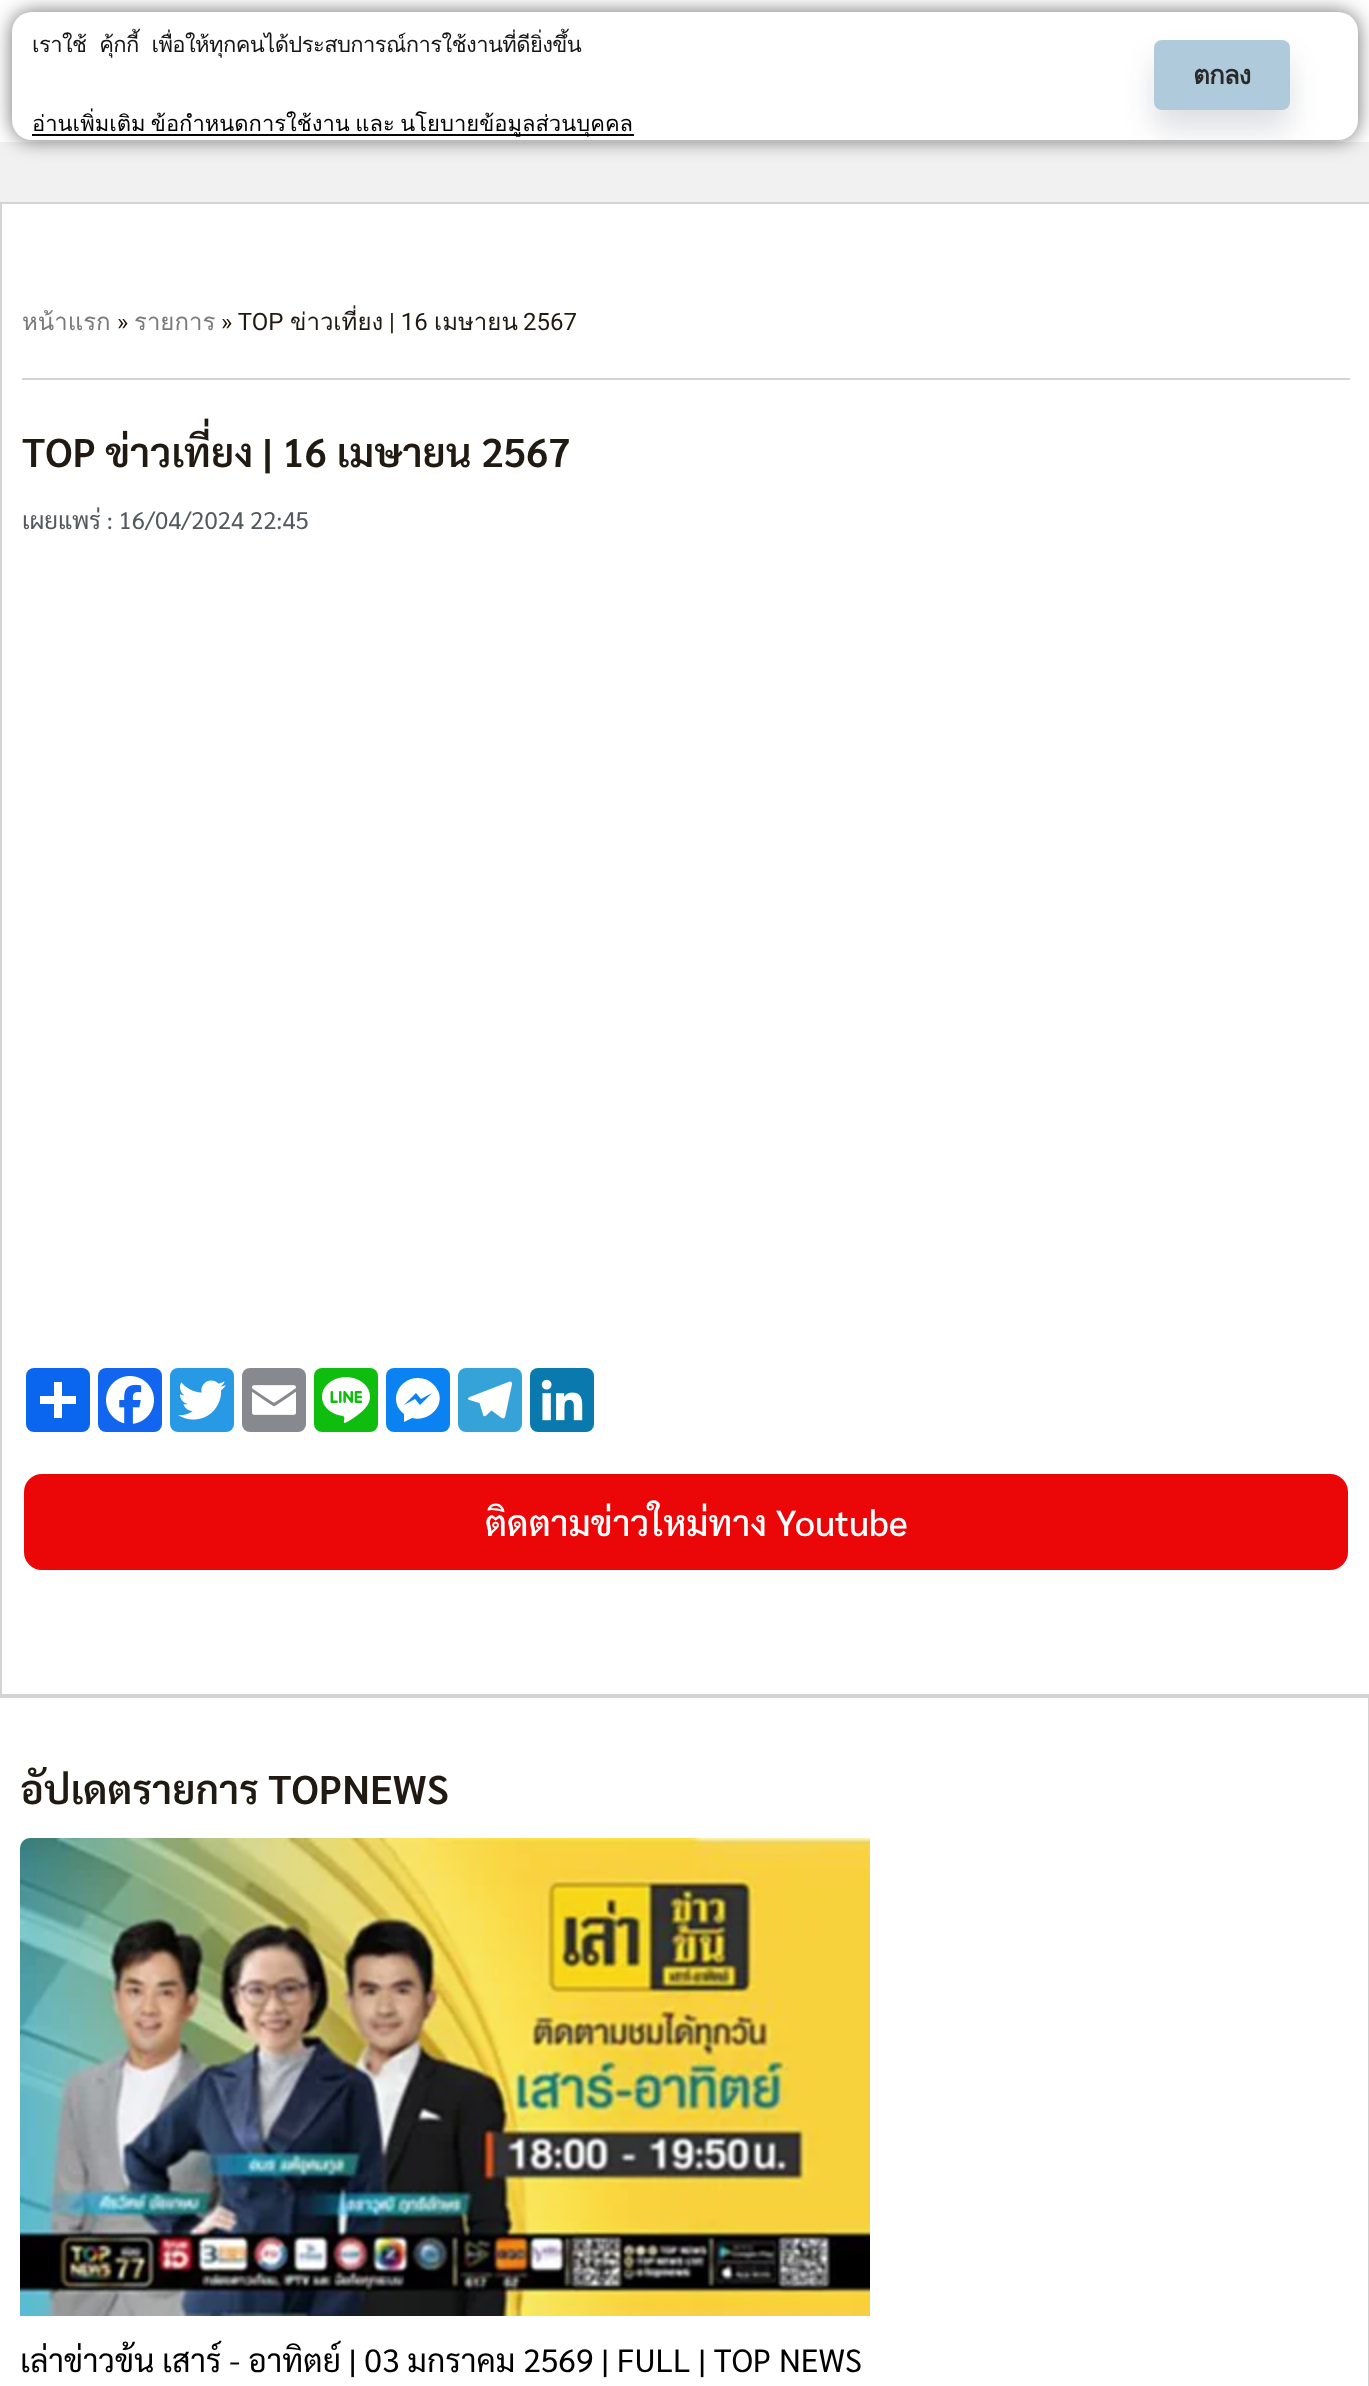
<svg xmlns="http://www.w3.org/2000/svg" xmlns:xlink="http://www.w3.org/1999/xlink" width="1369" height="2386" viewBox="0 0 1369 2386">
<style>
.cls-1{font:22px Loma;letter-spacing:-0.6px;fill:#161616}
.cls-2{font:22px Loma;fill:#000000}
.cls-3{font:bold 26px Loma;letter-spacing:-1px;fill:#2a2929}
.cls-4{font:24px Loma;fill:#7a7a7a}
.cls-5{font:24px Roboto;fill:#201a13}
.cls-6{font:24px Loma;fill:#201a13}
.cls-7{font:600 40px Sarabun;fill:#201a13}
.cls-8{font:24px Sarabun;fill:#54595e}
.cls-9{font:500 36px Sarabun;fill:#ffffff}
.cls-10{font:32px Sarabun;fill:#000000}
</style>
<defs>
<clipPath id="clip1"><rect x="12" y="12" width="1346" height="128" rx="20"/></clipPath>
</defs>
<rect width="100%" height="100%" fill="#ffffff"/>
<rect fill="#f1f1f1" x="0" y="142" width="1369" height="60"/>
<rect fill="#000000" fill-opacity="0.57" filter="blur(10px)" x="12" y="12" width="1346" height="128" rx="20"/>
<rect fill="#ffffff" x="12" y="12" width="1346" height="128" rx="20"/>
<rect fill="#050505" x="32" y="134" width="602" height="2"/>
<g clip-path="url(#clip1)">
<rect fill="#182b3e" fill-opacity="0.15" filter="blur(15px)" x="1154" y="60" width="136" height="70" rx="8"/>
</g>
<rect fill="#afcadb" x="1154" y="40" width="136" height="70" rx="8"/>
<rect fill="#d3d3d3" x="0" y="202" width="1369" height="2"/>
<rect fill="#d3d3d3" x="0" y="1694" width="1369" height="4"/>
<rect fill="#d3d3d3" x="0" y="202" width="2" height="1494"/>
<rect fill="#d3d3d3" x="22" y="378" width="1328" height="2"/>
<rect fill="#0a65ef" x="26" y="1368" width="64" height="64" rx="8"/>
<rect fill="#ffffff" x="54" y="1382" width="8" height="36"/>
<rect fill="#ffffff" x="40" y="1396" width="36" height="8"/>
<rect fill="#1165ef" x="98" y="1368" width="64" height="64" rx="8"/>
<image xlink:href="image0.png" x="106" y="1376" width="48" height="48"/>
<rect fill="#2899e5" x="170" y="1368" width="64" height="64" rx="8"/>
<image xlink:href="image1.png" x="178" y="1380" width="48" height="40"/>
<rect fill="#88898f" x="242" y="1368" width="64" height="64" rx="8"/>
<image xlink:href="image2.png" x="252" y="1385" width="44" height="30"/>
<rect fill="#0ebd0e" x="314" y="1368" width="64" height="64" rx="8"/>
<image xlink:href="image3.png" x="322" y="1377" width="48" height="46"/>
<rect fill="#0b82f1" x="386" y="1368" width="64" height="64" rx="8"/>
<path fill="#ffffff" d="M418 1378C398 1378 388 1402 404 1414V1422L412 1418C432 1423 450 1400 433 1384C429 1380 424 1378 418 1378M420 1405L415 1399L404 1405L416 1393L421 1399L432 1393Z"/>
<rect fill="#36a3d8" x="458" y="1368" width="64" height="64" rx="8"/>
<image xlink:href="image4.png" x="468" y="1381" width="44" height="38"/>
<rect fill="#0a79ad" x="530" y="1368" width="64" height="64" rx="8"/>
<image xlink:href="image5.png" x="541" y="1379" width="42" height="42"/>
<rect fill="#eb0607" stroke="#ffffff" stroke-width="2" x="23" y="1473" width="1326" height="98" rx="19"/>
<rect fill="#d3d3d3" x="1368" y="1696" width="1" height="690"/>
<image xlink:href="image6.png" x="20" y="1838" width="850" height="478"/>
<text class="cls-1" x="32" y="52" word-spacing="6">เราใช้ คุ้กกี้ เพื่อให้ทุกคนได้ประสบการณ์การใช้งานที่ดียิ่งขึ้น</text>
<text class="cls-2" x="32" y="131" word-spacing="-2">อ่านเพิ่มเติม ข้อกำหนดการใช้งาน และ นโยบายข้อมูลส่วนบุคคล</text>
<text class="cls-3" x="1193" y="84">ตกลง</text>
<text class="cls-4" x="22" y="330">หน้าแรก</text>
<text class="cls-5" x="117" y="330">»</text>
<text class="cls-4" x="134" y="330">รายการ</text>
<text class="cls-5" x="221" y="330">» TOP</text>
<text class="cls-6" x="290" y="330">ข่าวเที่ยง</text>
<text class="cls-5" x="389" y="330">| 16</text>
<text class="cls-6" x="434" y="330">เมษายน</text>
<text class="cls-5" x="523" y="330">2567</text>
<text class="cls-7" x="22" y="467">TOP ข่าวเที่ยง | 16 เมษายน 2567</text>
<text class="cls-8" x="22" y="529">เผยแพร่ : 16/04/2024 22:45</text>
<text class="cls-9" x="485" y="1536">ติดตามข่าวใหม่ทาง Youtube</text>
<text class="cls-7" x="20" y="1804">อัปเดตรายการ TOPNEWS</text>
<text class="cls-10" x="20" y="2372">เล่าข่าวข้น เสาร์ - อาทิตย์ | 03 มกราคม 2569 | FULL | TOP NEWS</text>
</svg>
